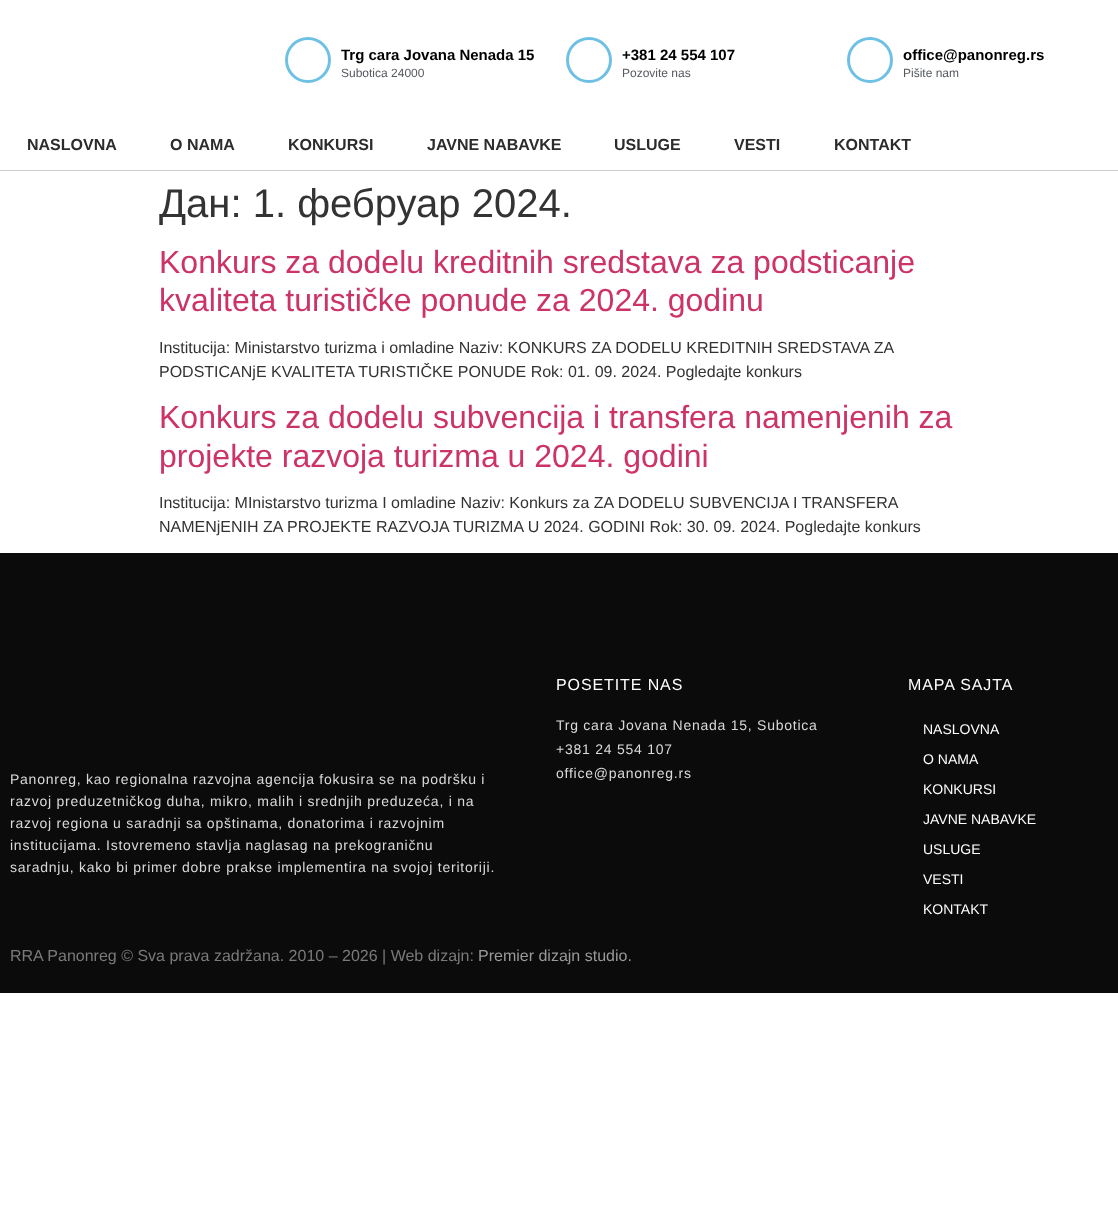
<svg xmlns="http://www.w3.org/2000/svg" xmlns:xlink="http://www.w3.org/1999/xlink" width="1118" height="1221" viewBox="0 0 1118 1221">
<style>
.cls-1{font:bold 15px Liberation Sans;fill:#000000}
.cls-2{font:12px Liberation Sans;fill:#54595f}
.cls-3{font:bold 16px Liberation Sans;fill:#2c2c2c}
.cls-4{font:40px Liberation Sans;fill:#333333}
.cls-5{font:32px Liberation Sans;fill:#cc3366}
.cls-6{font:16px Liberation Sans;fill:#333333}
.cls-7{font:14px Liberation Sans;letter-spacing:0.75px;fill:#dadada}
.cls-8{font:16px Liberation Sans;letter-spacing:0.9px;fill:#ffffff}
.cls-9{font:14px Liberation Sans;fill:#ffffff}
.cls-10{font:16px Liberation Sans;fill:#7a7a7a}
.cls-11{font:16px Liberation Sans;fill:#999999}
</style>
<rect width="100%" height="100%" fill="#ffffff"/>
<circle fill="none" stroke="#6ec1e4" stroke-width="3" cx="308" cy="60" r="21.5"/>
<circle fill="none" stroke="#6ec1e4" stroke-width="3" cx="589" cy="60" r="21.5"/>
<circle fill="none" stroke="#6ec1e4" stroke-width="3" cx="870" cy="60" r="21.5"/>
<rect fill="#cccdcf" x="0" y="170" width="1118" height="1"/>
<rect fill="#0b0b0b" x="0" y="553" width="1118" height="440"/>
<text class="cls-1" x="341" y="60">Trg cara Jovana Nenada 15</text>
<text class="cls-2" x="341" y="77">Subotica 24000</text>
<text class="cls-1" x="622" y="60">+381 24 554 107</text>
<text class="cls-2" x="622" y="77">Pozovite nas</text>
<text class="cls-1" x="903" y="60">office@panonreg.rs</text>
<text class="cls-2" x="903" y="77">Pišite nam</text>
<text class="cls-3" x="27" y="150">NASLOVNA</text>
<text class="cls-3" x="170" y="150">O NAMA</text>
<text class="cls-3" x="288" y="150">KONKURSI</text>
<text class="cls-3" x="427" y="150">JAVNE NABAVKE</text>
<text class="cls-3" x="614" y="150">USLUGE</text>
<text class="cls-3" x="734" y="150">VESTI</text>
<text class="cls-3" x="834" y="150">KONTAKT</text>
<text class="cls-4" x="159" y="217">Дан: 1. фебруар 2024.</text>
<text class="cls-5"><tspan x="159" y="273">Konkurs za dodelu kreditnih sredstava za podsticanje</tspan><tspan x="159" y="311">kvaliteta turističke ponude za 2024. godinu</tspan></text>
<text class="cls-6"><tspan x="159" y="353">Institucijа: Ministarstvo turizma i omladine Nаziv: KONKURS ZA DODELU KREDITNIH SREDSTAVA ZA</tspan><tspan x="159" y="377">PODSTICANjE KVALITETA TURISTIČKE PONUDE Rok: 01. 09. 2024. Pogledаjte konkurs</tspan></text>
<text class="cls-5"><tspan x="159" y="428">Konkurs za dodelu subvencija i transfera namenjenih za</tspan><tspan x="159" y="467">projekte razvoja turizma u 2024. godini</tspan></text>
<text class="cls-6"><tspan x="159" y="508">Institucijа: MInistarstvo turizma I omladine Nаziv: Konkurs za ZA DODELU SUBVENCIJA I TRANSFERA</tspan><tspan x="159" y="532">NAMENjENIH ZA PROJEKTE RAZVOJA TURIZMA U 2024. GODINI Rok: 30. 09. 2024. Pogledаjte konkurs</tspan></text>
<text class="cls-7"><tspan x="10" y="784">Panonreg, kao regionalna razvojna agencija fokusira se na podršku i</tspan><tspan x="10" y="806">razvoj preduzetničkog duha, mikro, malih i srednjih preduzeća, i na</tspan><tspan x="10" y="828">razvoj regiona u saradnji sa opštinama, donatorima i razvojnim</tspan><tspan x="10" y="850">institucijama. Istovremeno stavlja naglasag na prekograničnu</tspan><tspan x="10" y="872">saradnju, kako bi primer dobre prakse implementira na svojoj teritoriji.</tspan></text>
<text class="cls-8" x="556" y="690">POSETITE NAS</text>
<text class="cls-7"><tspan x="556" y="730">Trg cara Jovana Nenada 15, Subotica</tspan><tspan x="556" y="754">+381 24 554 107</tspan><tspan x="556" y="778">office@panonreg.rs</tspan></text>
<text class="cls-8" x="908" y="690">MAPA SAJTA</text>
<text class="cls-9" x="923" y="734">NASLOVNA</text>
<text class="cls-9" x="923" y="764">O NAMA</text>
<text class="cls-9" x="923" y="794">KONKURSI</text>
<text class="cls-9" x="923" y="824">JAVNE NABAVKE</text>
<text class="cls-9" x="923" y="854">USLUGE</text>
<text class="cls-9" x="923" y="884">VESTI</text>
<text class="cls-9" x="923" y="914">KONTAKT</text>
<text class="cls-10" x="10" y="961">RRA Panonreg © Sva prava zadržana. 2010 – 2026 | Web dizajn:</text>
<text class="cls-11" x="478" y="961">Premier dizajn studio.</text>
</svg>
